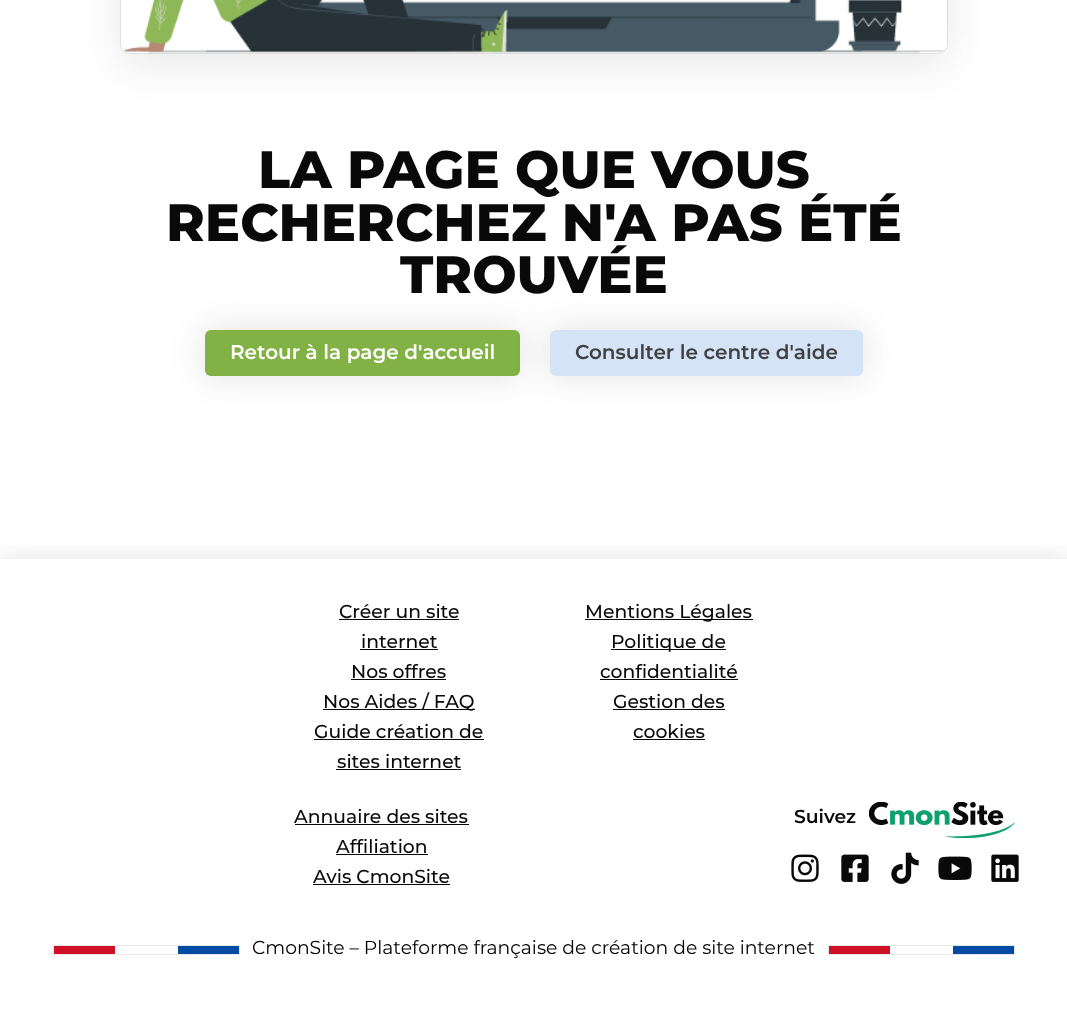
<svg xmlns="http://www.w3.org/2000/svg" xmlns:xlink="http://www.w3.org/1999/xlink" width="1067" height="1030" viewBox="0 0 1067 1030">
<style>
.cls-1{font:800 52.5px Montserrat;fill:#090909}
.cls-2{font:600 20px Montserrat;fill:#ffffff}
.cls-3{font:600 20px Montserrat;fill:#414144}
.cls-4{font:500 18.75px Montserrat;fill:#090909}
.cls-5{font:600 18.75px Montserrat;fill:#090909}
.cls-6{font:18.75px Montserrat;fill:#000000}
</style>
<defs>
<clipPath id="clip1"><path d="M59 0H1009V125H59ZM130-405H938C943.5-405 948-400.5 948-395V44C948 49.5 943.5 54 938 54H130C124.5 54 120 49.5 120 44V-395C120-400.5 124.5-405 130-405Z" clip-rule="evenodd"/></clipPath>
<clipPath id="clip2"><rect x="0" y="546" width="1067" height="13"/></clipPath>
</defs>
<rect width="100%" height="100%" fill="#ffffff"/>
<g clip-path="url(#clip1)">
<rect fill="#202020" fill-opacity="0.1" filter="blur(20px)" x="120" y="-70" width="828" height="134" rx="10"/>
</g>
<rect fill="none" stroke="#e0e0e0" x="120.5" y="-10.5" width="827" height="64" rx="9.5"/>
<image xlink:href="image0.png" x="123" y="0" width="821" height="53"/>
<rect fill="#000000" fill-opacity="0.12" filter="blur(17px)" x="205" y="330" width="315" height="46" rx="6"/>
<rect fill="#82b145" x="205" y="330" width="315" height="46" rx="6"/>
<rect fill="#000000" fill-opacity="0.12" filter="blur(17px)" x="550" y="330" width="313" height="46" rx="6"/>
<rect fill="#d4e3f6" x="550" y="330" width="313" height="46" rx="6"/>
<g clip-path="url(#clip2)">
<rect fill="#000000" fill-opacity="0.17" filter="blur(15px)" x="1" y="564" width="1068" height="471"/>
</g>
<rect fill="#090909" x="339" y="619" width="120" height="1"/>
<rect fill="#090909" x="360" y="649" width="78" height="1"/>
<rect fill="#090909" x="351" y="679" width="95" height="1"/>
<rect fill="#090909" x="323" y="709" width="152" height="1"/>
<rect fill="#090909" x="314" y="739" width="170" height="1"/>
<rect fill="#090909" x="336" y="769" width="125" height="1"/>
<rect fill="#090909" x="585" y="619" width="168" height="1"/>
<rect fill="#090909" x="611" y="649" width="115" height="1"/>
<rect fill="#090909" x="600" y="679" width="138" height="1"/>
<rect fill="#090909" x="613" y="709" width="112" height="1"/>
<rect fill="#090909" x="633" y="739" width="72" height="1"/>
<rect fill="#090909" x="295" y="824" width="174" height="1"/>
<rect fill="#090909" x="336" y="854" width="92" height="1"/>
<rect fill="#090909" x="313" y="884" width="137" height="1"/>
<image xlink:href="image1.png" x="869" y="802" width="146" height="36"/>
<image xlink:href="image2.png" x="791" y="854" width="28" height="28"/>
<image xlink:href="image3.png" x="841" y="854" width="28" height="28"/>
<image xlink:href="image4.png" x="891" y="852" width="28" height="32"/>
<image xlink:href="image5.png" x="938" y="856" width="34" height="24"/>
<image xlink:href="image6.png" x="991" y="854" width="28" height="28"/>
<rect fill="#004ba4" x="178" y="946" width="61" height="8"/>
<rect fill="#ce1126" x="54" y="946" width="61" height="8"/>
<rect fill="none" stroke="#e8e8e8" x="53.5" y="945.5" width="186" height="9"/>
<rect fill="#004ba4" x="953" y="946" width="61" height="8"/>
<rect fill="#ce1126" x="829" y="946" width="61" height="8"/>
<rect fill="none" stroke="#e8e8e8" x="828.5" y="945.5" width="186" height="9"/>
<text class="cls-1" x="258" y="188">LA PAGE QUE VOUS</text>
<text class="cls-1" x="166" y="241">RECHERCHEZ N'A PAS ÉTÉ</text>
<text class="cls-1" x="400" y="293">TROUVÉE</text>
<text class="cls-2" x="230" y="359">Retour à la page d'accueil</text>
<text class="cls-3" x="575" y="359">Consulter le centre d'aide</text>
<text class="cls-4" x="339" y="618">Créer un site</text>
<text class="cls-4" x="361" y="648">internet</text>
<text class="cls-4" x="351" y="678">Nos offres</text>
<text class="cls-4" x="323" y="708">Nos Aides / FAQ</text>
<text class="cls-4" x="314" y="738">Guide création de</text>
<text class="cls-4" x="337" y="768">sites internet</text>
<text class="cls-4" x="585" y="618">Mentions Légales</text>
<text class="cls-4" x="611" y="648">Politique de</text>
<text class="cls-4" x="600" y="678">confidentialité</text>
<text class="cls-4" x="613" y="708">Gestion des</text>
<text class="cls-4" x="633" y="738">cookies</text>
<text class="cls-4" x="294" y="823">Annuaire des sites</text>
<text class="cls-4" x="336" y="853">Affiliation</text>
<text class="cls-4" x="313" y="883">Avis CmonSite</text>
<text class="cls-5" x="794" y="823">Suivez</text>
<text class="cls-6" x="252" y="954">CmonSite – Plateforme française de création de site internet</text>
</svg>
